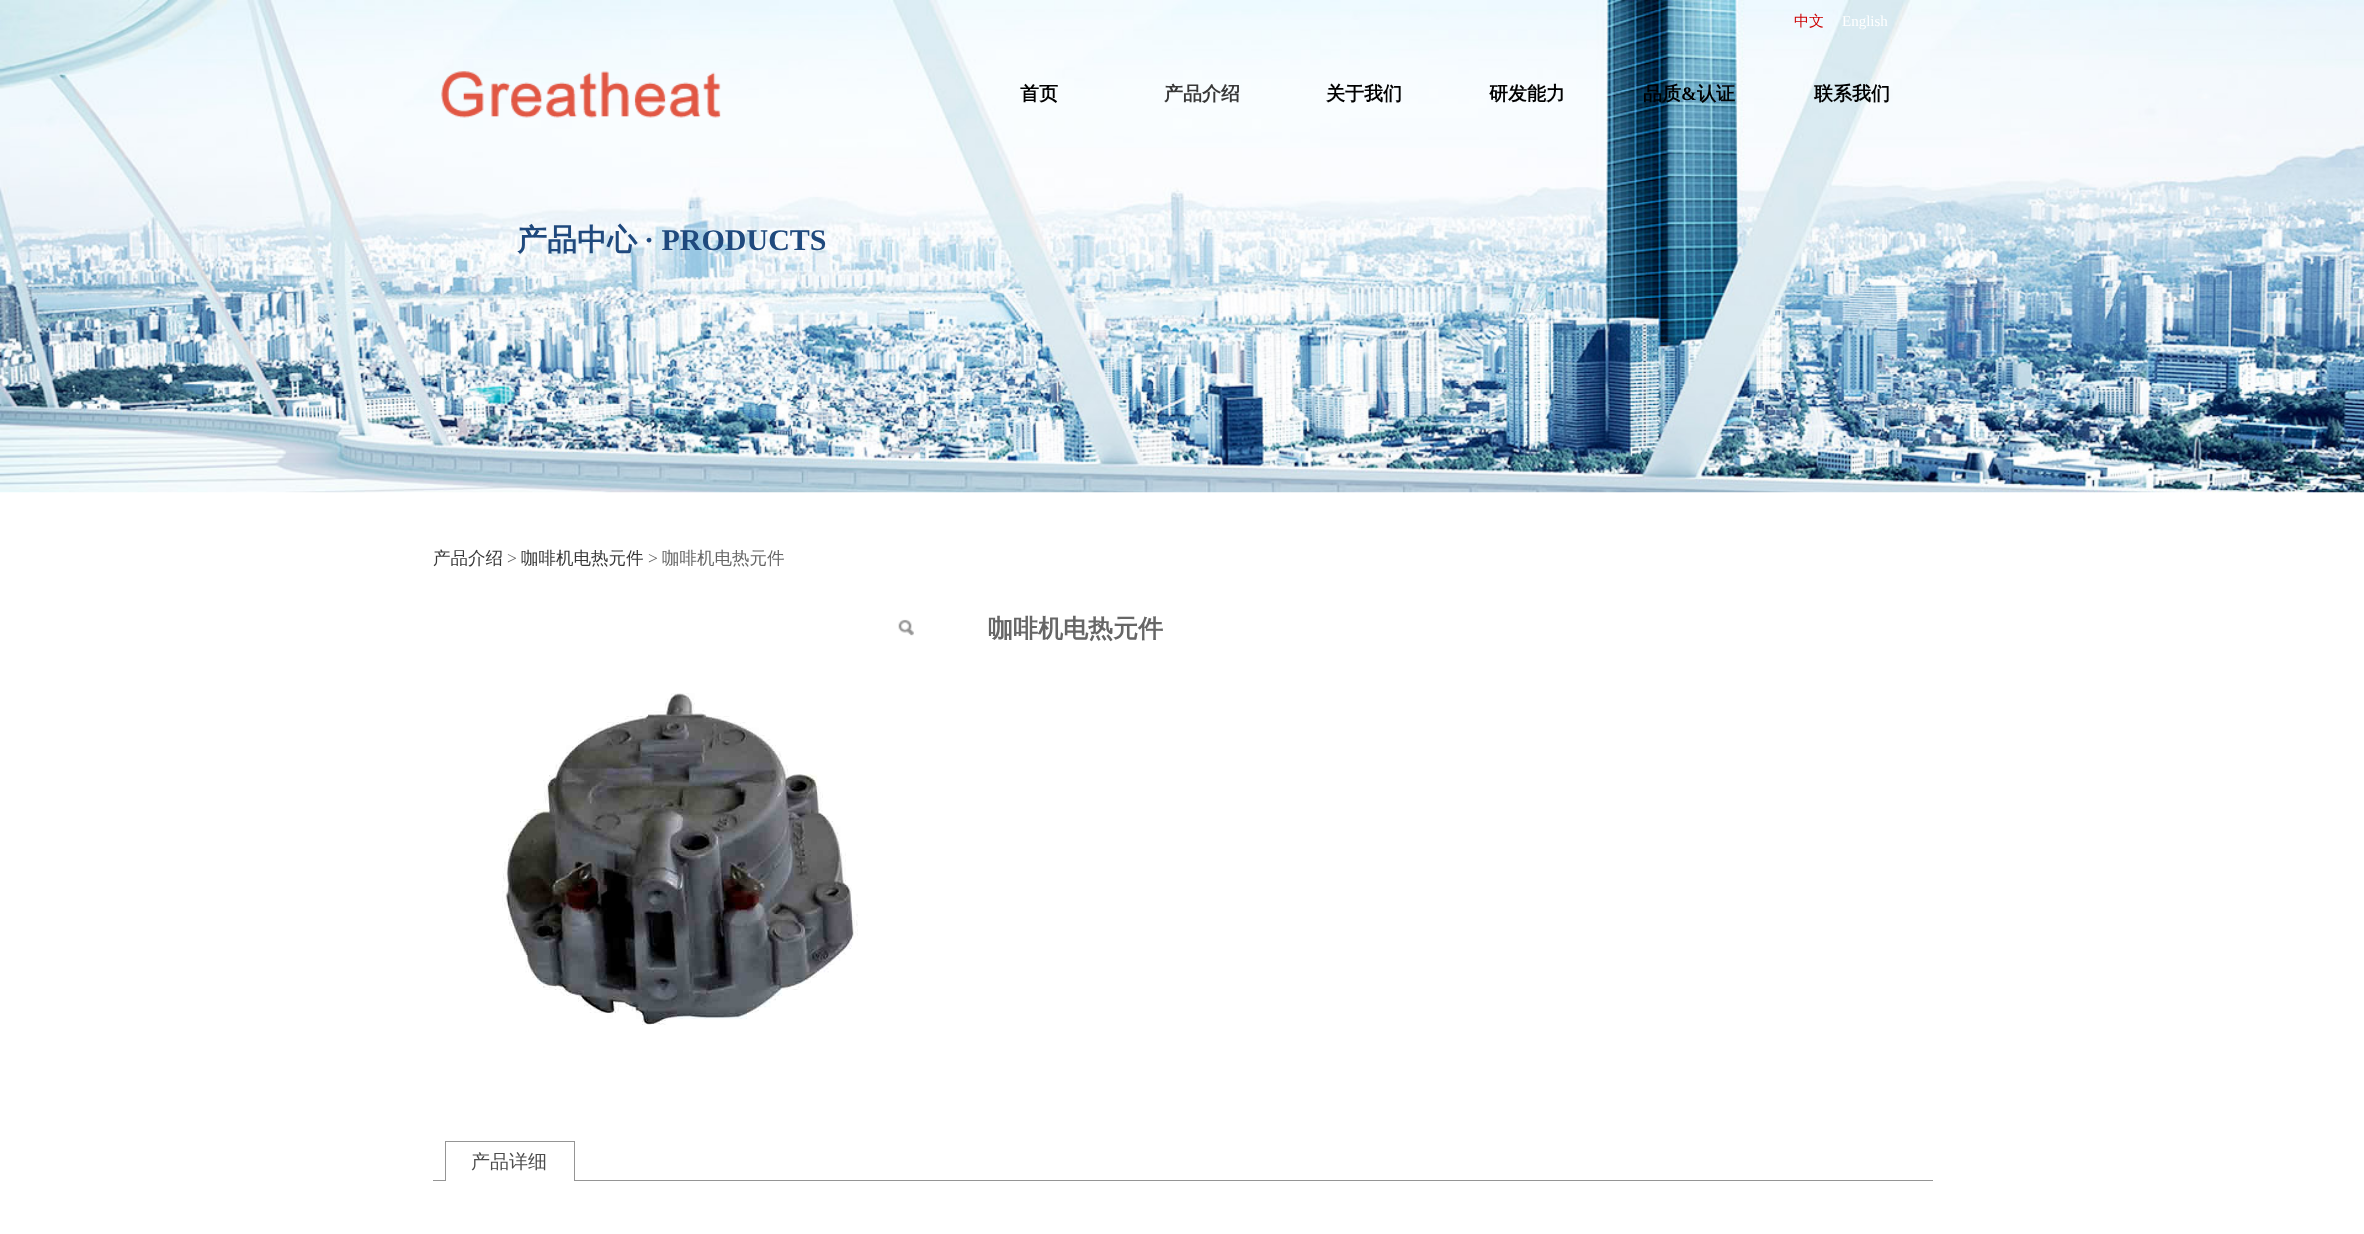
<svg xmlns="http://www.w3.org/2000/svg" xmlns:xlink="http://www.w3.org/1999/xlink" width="2364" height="1234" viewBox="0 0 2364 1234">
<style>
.cls-1{font:500 15px WenQuanYi Zen Hei;fill:#cd0000}
.cls-2{font:15px Liberation Serif;fill:#ffffff}
.cls-3{font:bold 19px WenQuanYi Zen Hei;fill:#000000}
.cls-4{font:bold 19px WenQuanYi Zen Hei;fill:#373737}
.cls-5{font:bold 19px Liberation Serif;fill:#000000}
.cls-6{font:bold 30px WenQuanYi Zen Hei;fill:#1f497d}
.cls-7{font:bold 30px Liberation Serif;fill:#1f497d}
.cls-8{font:500 17.5px WenQuanYi Zen Hei;fill:#373737}
.cls-9{font:17.5px Liberation Serif;fill:#666666}
.cls-10{font:500 17.5px WenQuanYi Zen Hei;fill:#666666}
.cls-11{font:bold 25px WenQuanYi Zen Hei;fill:#666666}
.cls-12{font:500 19px WenQuanYi Zen Hei;fill:#4c4c4c}
</style>
<rect width="100%" height="100%" fill="#ffffff"/>
<image xlink:href="image1.png" x="0" y="0" width="2364" height="493"/>
<image xlink:href="image0.png" x="441" y="71" width="280" height="47"/>
<image xlink:href="image2.png" x="898" y="619" width="16" height="17"/>
<image xlink:href="image3.png" x="502" y="693" width="356" height="332"/>
<rect fill="#959595" x="433" y="1180" width="1500" height="1"/>
<rect fill="#ffffff" x="446" y="1180" width="128" height="1"/>
<rect fill="#959595" x="445" y="1141" width="130" height="1"/>
<rect fill="#959595" x="574" y="1141" width="1" height="40"/>
<rect fill="#959595" x="445" y="1141" width="1" height="40"/>
<text class="cls-1" x="1794" y="26">中文</text>
<text class="cls-2" x="1842" y="26">English</text>
<text class="cls-3" x="1020" y="100">首页</text>
<text class="cls-4" x="1164" y="100">产品介绍</text>
<text class="cls-3" x="1326" y="100">关于我们</text>
<text class="cls-3" x="1489" y="100">研发能力</text>
<text class="cls-3" x="1643" y="100">品质</text>
<text class="cls-5" x="1681" y="100">&amp;</text>
<text class="cls-3" x="1697" y="100">认证</text>
<text class="cls-3" x="1814" y="100">联系我们</text>
<text class="cls-6" x="517" y="250">产品中心</text>
<text class="cls-7" x="644" y="250">· PRODUCTS</text>
<text class="cls-8" x="433" y="564">产品介绍</text>
<text class="cls-9" x="507" y="564">&gt;</text>
<text class="cls-8" x="521" y="564">咖啡机电热元件</text>
<text class="cls-9" x="648" y="564">&gt;</text>
<text class="cls-10" x="662" y="564">咖啡机电热元件</text>
<text class="cls-11" x="988" y="637">咖啡机电热元件</text>
<text class="cls-12" x="471" y="1168">产品详细</text>
</svg>
